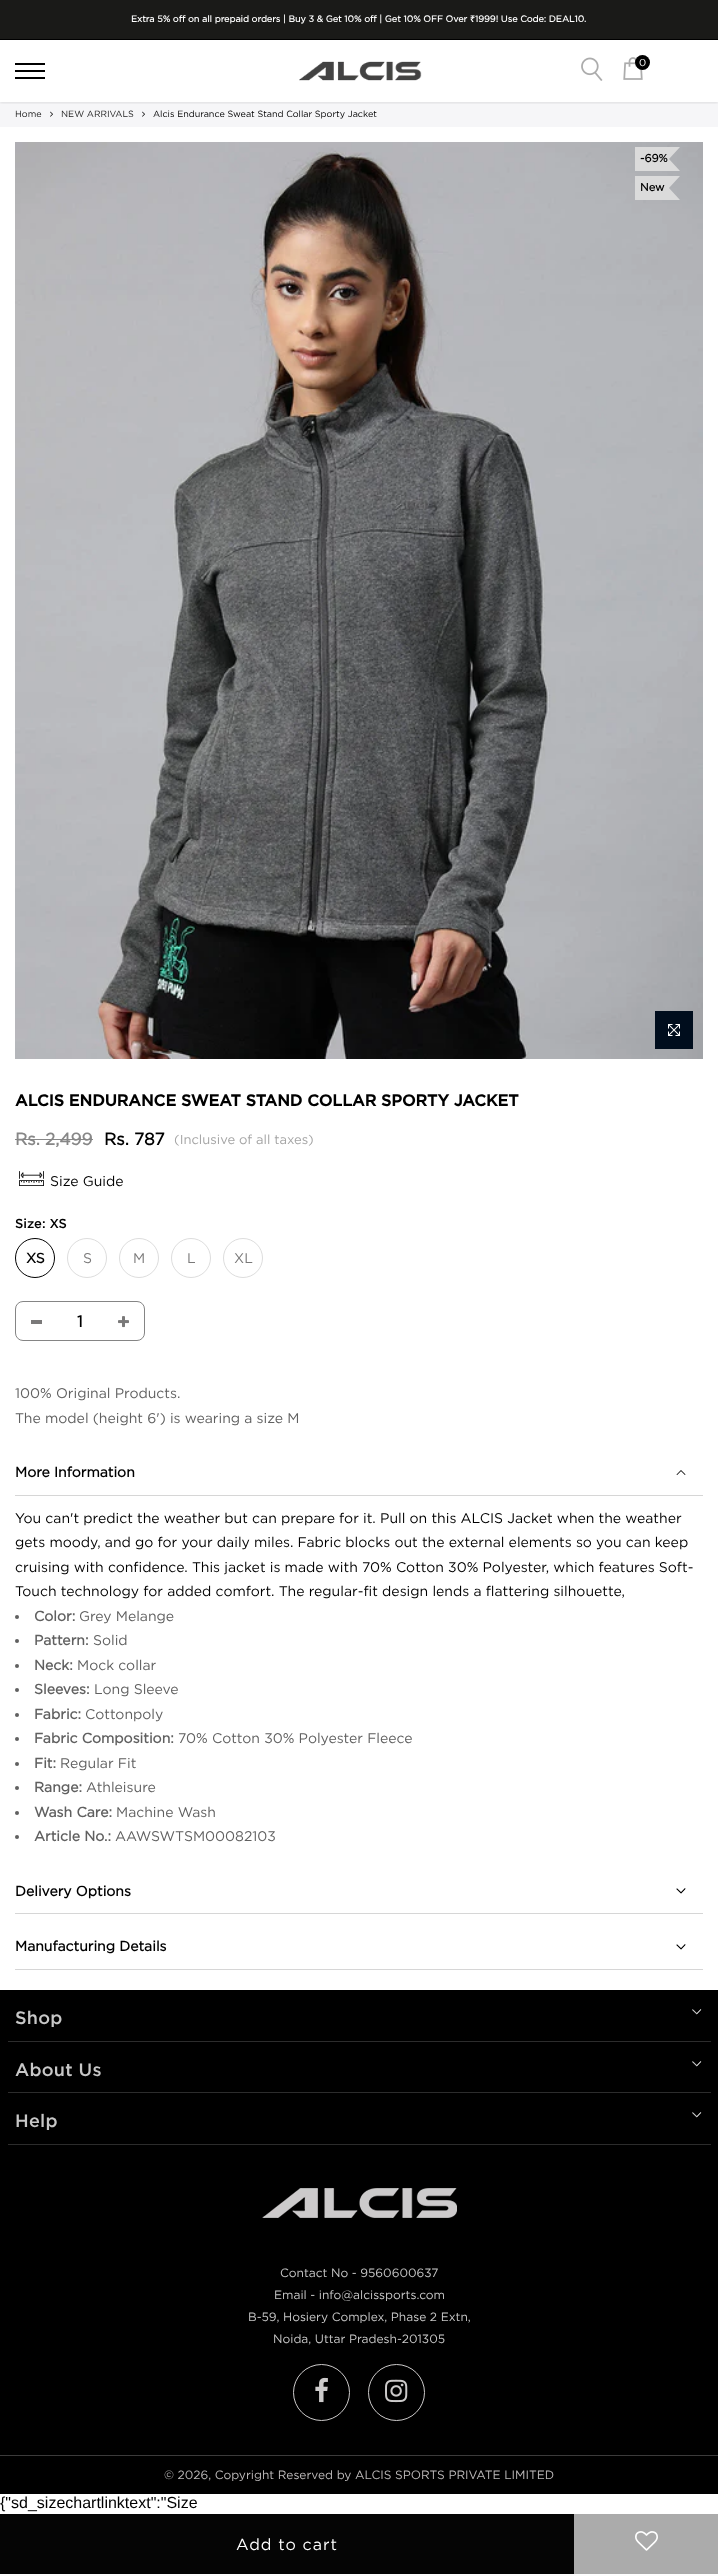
<svg xmlns="http://www.w3.org/2000/svg" xmlns:xlink="http://www.w3.org/1999/xlink" width="718" height="2574" viewBox="0 0 718 2574">
<style>
.cls-1{font:bold 9px 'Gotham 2';fill:#ffffff}
.cls-2{font:600 9px Noto Sans;fill:#ffffff}
.cls-3{font:10px Gotham;fill:#ffffff}
.cls-4{font:9px Gotham;fill:#222222}
.cls-5{font:9px Gotham;fill:#000000}
.cls-6{font:bold 11px 'Gotham 2';fill:#000000}
.cls-7{font:bold 16px Gotham;fill:#000000}
.cls-8{font:bold 17px 'Gotham 2';fill:#878787}
.cls-9{font:bold 17px 'Gotham 2';fill:#000000}
.cls-10{font:13px Gotham;fill:#a4a4a4}
.cls-11{font:14px Gotham;fill:#000000}
.cls-12{font:500 13px Gotham;fill:#000000}
.cls-13{font:bold 14px 'Gotham 2';fill:#000000}
.cls-14{font:14px Gotham;fill:#7a7979}
.cls-15{font:bold 16px 'Gotham 2';fill:#000000}
.cls-16{font:16px Gotham;letter-spacing:1px;fill:#ffffff}
.cls-17{font:14px Gotham;fill:#606060}
.cls-18{font:bold 14px 'Gotham 2';fill:#606060}
.cls-19{font:500 18px Gotham;letter-spacing:0.25px;fill:#c7c7c7}
.cls-20{font:12px Gotham;fill:#c7c7c7}
.cls-21{font:12px Gotham;fill:#bdbaba}
.cls-22{font:16px Liberation Sans;fill:#000000}
</style>
<defs>
<clipPath id="clip1"><rect x="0" y="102" width="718" height="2"/></clipPath>
</defs>
<rect width="100%" height="100%" fill="#ffffff"/>
<rect fill="#f6f6f8" x="0" y="102" width="718" height="25"/>
<g clip-path="url(#clip1)">
<rect fill="#000000" fill-opacity="0.1" filter="blur(1.5px)" x="0" y="1" width="718" height="102"/>
</g>
<rect fill="#1a1a18" x="0" y="0" width="718" height="39"/>
<rect fill="#000000" x="0" y="39" width="718" height="1"/>
<rect fill="#000000" x="15" y="63" width="30" height="2"/>
<rect fill="#000000" x="15" y="70" width="30" height="2"/>
<rect fill="#000000" x="15" y="77" width="30" height="2"/>
<image xlink:href="image0.png" x="299" y="61" width="123" height="20"/>
<image xlink:href="image1.png" x="581" y="57" width="22" height="24"/>
<image xlink:href="image2.png" x="623" y="57" width="20" height="23"/>
<circle fill="#000000" cx="642.5" cy="62.5" r="7.5"/>
<image xlink:href="image3.png" x="50" y="111" width="3" height="6"/>
<image xlink:href="image3.png" x="142" y="111" width="3" height="6"/>
<image xlink:href="image4.png" x="15" y="142" width="688" height="917"/>
<path fill="#dbdbdb" d="M635 147H680L669 159L680 171H635Z"/>
<path fill="#dbdbdb" d="M635 176H680L669 188L680 200H635Z"/>
<rect fill="#000d1d" x="655" y="1011" width="38" height="38"/>
<image xlink:href="image5.png" x="668" y="1024" width="12" height="12"/>
<rect fill="#878787" x="15" y="1139" width="78" height="1"/>
<image xlink:href="image6.png" x="19" y="1171" width="25" height="15"/>
<circle fill="none" stroke="#000000" cx="35" cy="1258" r="19.5"/>
<circle fill="none" stroke="#dddddd" cx="87" cy="1258" r="19.5"/>
<circle fill="none" stroke="#dddddd" cx="139" cy="1258" r="19.5"/>
<circle fill="none" stroke="#dddddd" cx="191" cy="1258" r="19.5"/>
<circle fill="none" stroke="#dddddd" cx="243" cy="1258" r="19.5"/>
<rect fill="none" stroke="#858585" x="15.5" y="1301.5" width="129" height="39" rx="7.5"/>
<rect fill="#7a7979" x="31" y="1320" width="11" height="4"/>
<image xlink:href="image7.png" x="118" y="1316" width="11" height="12"/>
<rect fill="#050505" x="0" y="2514" width="574" height="60"/>
<rect fill="#ababab" x="574" y="2514" width="144" height="60"/>
<image xlink:href="image8.png" x="635" y="2531" width="23" height="20"/>
<rect fill="#d6d6d6" x="15" y="1495" width="688" height="1"/>
<image xlink:href="image9.png" x="676" y="1470" width="10" height="5"/>
<circle fill="#606060" cx="17" cy="1617" r="2"/>
<circle fill="#606060" cx="17" cy="1641" r="2"/>
<circle fill="#606060" cx="17" cy="1666" r="2"/>
<circle fill="#606060" cx="17" cy="1690" r="2"/>
<circle fill="#606060" cx="17" cy="1715" r="2"/>
<circle fill="#606060" cx="17" cy="1739" r="2"/>
<circle fill="#606060" cx="17" cy="1764" r="2"/>
<circle fill="#606060" cx="17" cy="1788" r="2"/>
<circle fill="#606060" cx="17" cy="1813" r="2"/>
<circle fill="#606060" cx="17" cy="1837" r="2"/>
<rect fill="#d6d6d6" x="15" y="1913" width="688" height="1"/>
<image xlink:href="image10.png" x="676" y="1888" width="10" height="6"/>
<image xlink:href="image11.png" x="676" y="1888" width="10" height="6"/>
<rect fill="#d6d6d6" x="15" y="1969" width="688" height="1"/>
<image xlink:href="image12.png" x="676" y="1944" width="10" height="6"/>
<image xlink:href="image13.png" x="676" y="1944" width="10" height="6"/>
<rect fill="#000000" x="0" y="1990" width="718" height="465"/>
<rect fill="#2c2c2c" x="8" y="2041" width="703" height="1"/>
<image xlink:href="image14.png" x="692" y="2009" width="10" height="6"/>
<image xlink:href="image15.png" x="692" y="2009" width="10" height="6"/>
<rect fill="#2c2c2c" x="8" y="2092" width="703" height="1"/>
<image xlink:href="image16.png" x="692" y="2061" width="10" height="6"/>
<image xlink:href="image17.png" x="692" y="2061" width="10" height="6"/>
<rect fill="#2c2c2c" x="8" y="2144" width="703" height="1"/>
<image xlink:href="image18.png" x="692" y="2112" width="10" height="6"/>
<image xlink:href="image19.png" x="692" y="2112" width="10" height="6"/>
<image xlink:href="image20.png" x="262" y="2188" width="195" height="30"/>
<circle fill="none" stroke="#cccaca" cx="321.5" cy="2392.5" r="28"/>
<image xlink:href="image21.png" x="315" y="2377" width="13" height="26"/>
<circle fill="none" stroke="#cccaca" cx="396.5" cy="2392.5" r="28"/>
<image xlink:href="image22.png" x="385" y="2379" width="23" height="24"/>
<rect fill="#3b3b3b" x="0" y="2455" width="718" height="1"/>
<rect fill="#000000" x="0" y="2456" width="718" height="38"/>
<text class="cls-1" x="131" y="22">Extra 5% off on all prepaid orders | Buy 3 &amp; Get 10% off | Get 10% OFF Over</text>
<text class="cls-2" x="470" y="22">₹</text>
<text class="cls-1" x="475" y="22">1999! Use Code: DEAL10.</text>
<text class="cls-3" x="639" y="66">0</text>
<text class="cls-4" x="15" y="117">Home</text>
<text class="cls-4" x="61" y="117">NEW ARRIVALS</text>
<text class="cls-5" x="153" y="117">Alcis Endurance Sweat Stand Collar Sporty Jacket</text>
<text class="cls-6" x="640" y="162">-69%</text>
<text class="cls-6" x="640" y="191">New</text>
<text class="cls-7" x="15" y="1106">ALCIS ENDURANCE SWEAT STAND COLLAR SPORTY JACKET</text>
<text class="cls-8" x="15" y="1145">Rs. 2,499</text>
<text class="cls-9" x="104" y="1145">Rs. 787</text>
<text class="cls-10" x="174" y="1144">(Inclusive of all taxes)</text>
<text class="cls-11" x="50" y="1186">Size Guide</text>
<text class="cls-12" x="15" y="1228">Size: XS</text>
<text class="cls-13" x="26" y="1263">XS</text>
<text class="cls-14" x="83" y="1263">S</text>
<text class="cls-14" x="133" y="1263">M</text>
<text class="cls-14" x="187" y="1263">L</text>
<text class="cls-14" x="234" y="1263">XL</text>
<text class="cls-15" x="77" y="1327">1</text>
<text class="cls-16" x="236" y="2550">Add to cart</text>
<text class="cls-17"><tspan x="15" y="1398">100% Original Products.</tspan><tspan x="15" y="1423">The model (height 6') is wearing a size M</tspan></text>
<text class="cls-13" x="15" y="1477">More Information</text>
<text class="cls-11"><tspan x="15" y="1523">You can't predict the weather but can prepare for it. Pull on this ALCIS Jacket when the weather</tspan><tspan x="15" y="1547">gets moody, and go for your daily miles. Fabric blocks out the external elements so you can keep</tspan><tspan x="15" y="1572">cruising with confidence. This jacket is made with 70% Cotton 30% Polyester, which features Soft-</tspan><tspan x="15" y="1596">Touch technology for added comfort. The regular-fit design lends a flattering silhouette,</tspan></text>
<text class="cls-18" x="34" y="1621">Color:</text>
<text class="cls-17" x="79" y="1621">Grey Melange</text>
<text class="cls-18" x="34" y="1645">Pattern:</text>
<text class="cls-17" x="93" y="1645">Solid</text>
<text class="cls-18" x="34" y="1670">Neck:</text>
<text class="cls-17" x="77" y="1670">Mock collar</text>
<text class="cls-18" x="34" y="1694">Sleeves:</text>
<text class="cls-17" x="94" y="1694">Long Sleeve</text>
<text class="cls-18" x="34" y="1719">Fabric:</text>
<text class="cls-17" x="85" y="1719">Cottonpoly</text>
<text class="cls-18" x="34" y="1743">Fabric Composition:</text>
<text class="cls-17" x="178" y="1743">70% Cotton 30% Polyester Fleece</text>
<text class="cls-18" x="34" y="1768">Fit:</text>
<text class="cls-17" x="60" y="1768">Regular Fit</text>
<text class="cls-18" x="34" y="1792">Range:</text>
<text class="cls-17" x="86" y="1792">Athleisure</text>
<text class="cls-18" x="34" y="1817">Wash Care:</text>
<text class="cls-17" x="116" y="1817">Machine Wash</text>
<text class="cls-18" x="34" y="1841">Article No.:</text>
<text class="cls-17" x="115" y="1841">AAWSWTSM00082103</text>
<text class="cls-13" x="15" y="1896">Delivery Options</text>
<text class="cls-13" x="15" y="1951">Manufacturing Details</text>
<text class="cls-19" x="15" y="2024">Shop</text>
<text class="cls-19" x="15" y="2076">About Us</text>
<text class="cls-19" x="15" y="2127">Help</text>
<text class="cls-20" x="280" y="2277">Contact No - 9560600637</text>
<text class="cls-20" x="274" y="2299">Email - info@alcissports.com</text>
<text class="cls-20" x="248" y="2321">B-59, Hosiery Complex, Phase 2 Extn,</text>
<text class="cls-20" x="273" y="2343">Noida, Uttar Pradesh-201305</text>
<text class="cls-21" x="164" y="2479">© 2026, Copyright Reserved by ALCIS SPORTS PRIVATE LIMITED</text>
<text class="cls-22" x="0" y="2508">{"sd_sizechartlinktext":"Size</text>
</svg>
